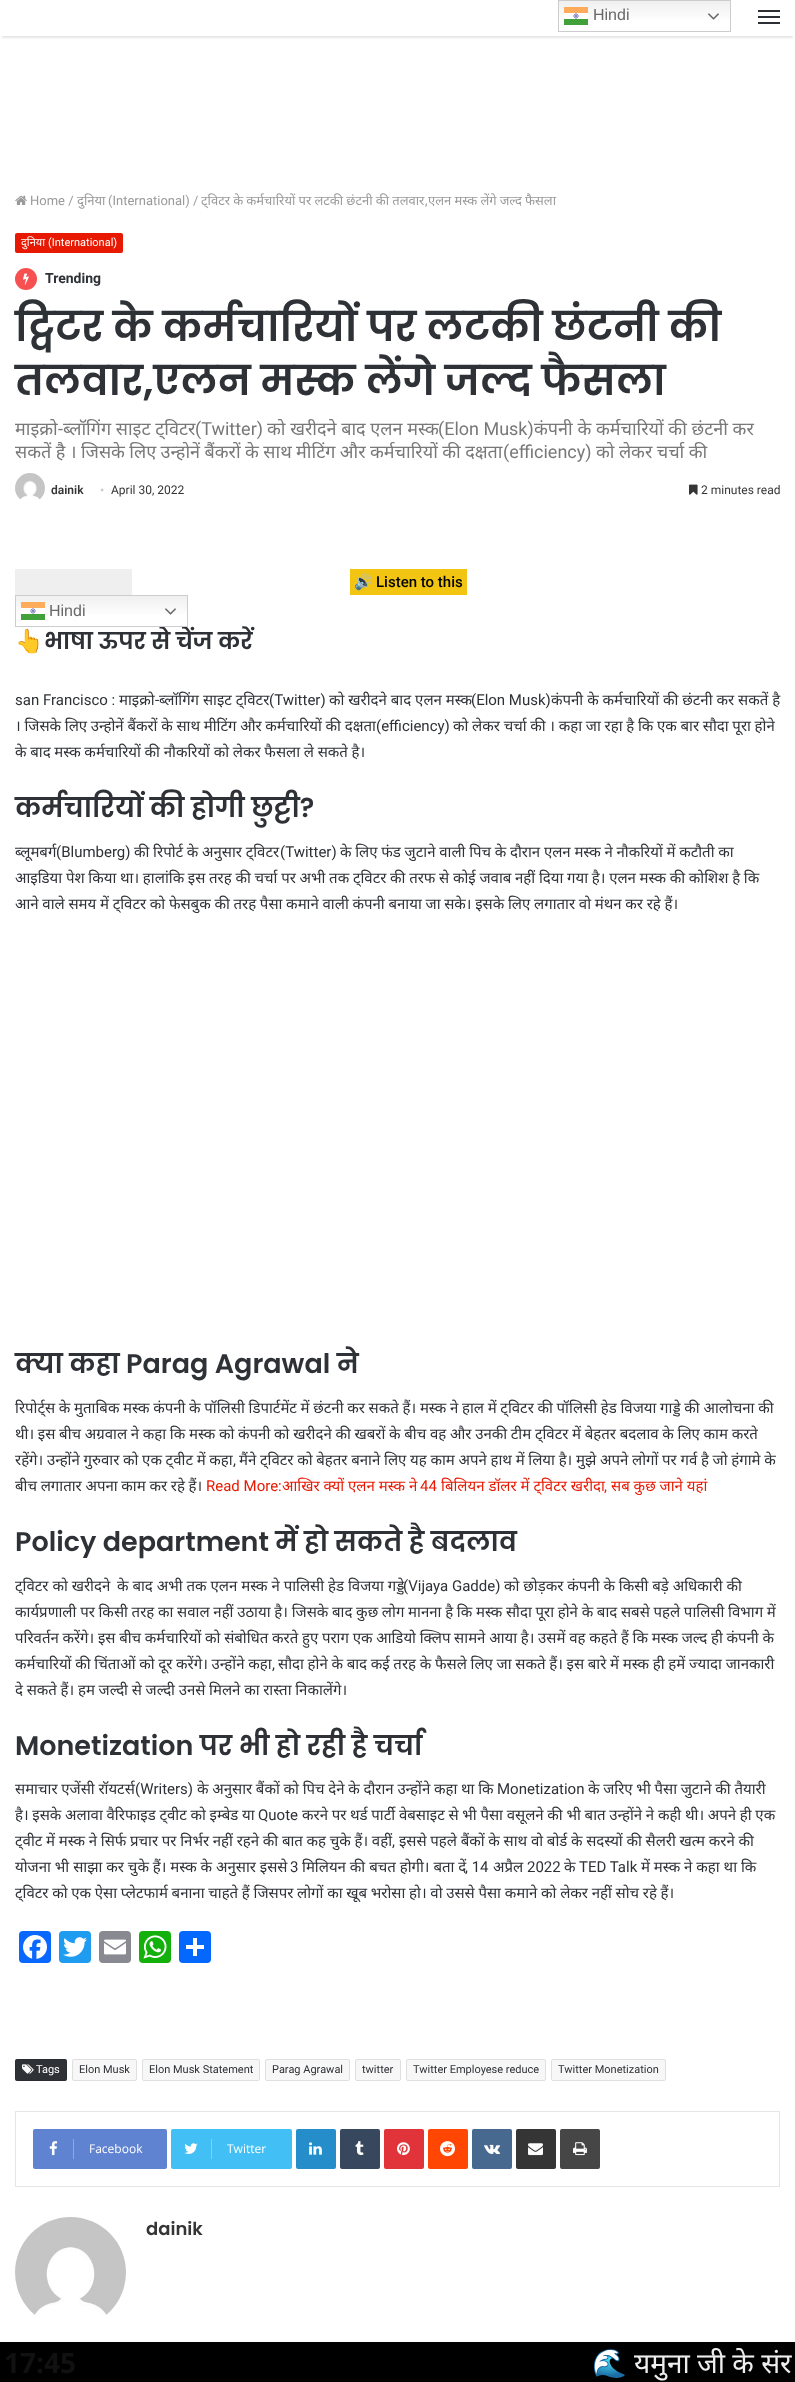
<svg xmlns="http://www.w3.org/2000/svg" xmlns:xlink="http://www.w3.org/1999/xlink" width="795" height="2382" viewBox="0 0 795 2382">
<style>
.cls-1{font:16px Liberation Sans;fill:#686868}
.cls-2{font:13px Roboto;fill:#9a9a9a}
.cls-3{font:13px Noto Sans;fill:#9a9a9a}
.cls-4{font:11px Noto Sans;fill:#ffffff}
.cls-5{font:11px Roboto;fill:#ffffff}
.cls-6{font:bold 14px Roboto;fill:#2e3136}
.cls-7{font:600 41px Poppins;fill:#2e3136}
.cls-8{font:18px Noto Sans;fill:#787878}
.cls-9{font:18px Roboto;fill:#787878}
.cls-10{font:600 12px Roboto;fill:#353535}
.cls-11{font:12px Liberation Serif;fill:#cdcdcd}
.cls-12{font:12px Roboto;fill:#353535}
.cls-13{font:15px Noto Color Emoji;fill:#030303}
.cls-14{font:500 15px Roboto;fill:#030303}
.cls-15{font:bold 23px Noto Color Emoji;fill:#2e3136}
.cls-16{font:600 23px Poppins;fill:#2e3136}
.cls-17{font:15px Roboto;fill:#2e3136}
.cls-18{font:15px Noto Sans;fill:#2e3136}
.cls-19{font:600 27px Poppins;fill:#2e3136}
.cls-20{font:15px Roboto;fill:#e81903}
.cls-21{font:15px Noto Sans;fill:#e81903}
.cls-22{font:11px Roboto;fill:#2e3136}
.cls-23{font:12px Open Sans;fill:#ffffff}
.cls-24{font:600 18px Poppins;fill:#353535}
.cls-25{font:bold 28px Open Sans;fill:#111111}
.cls-26{font:bold 28px 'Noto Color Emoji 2';fill:#eeeeee}
.cls-27{font:28px Noto Sans;fill:#eeeeee}
</style>
<defs>
<clipPath id="clip1"><rect x="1" y="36" width="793" height="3"/></clipPath>
<linearGradient id="g1" gradientUnits="userSpaceOnUse" x1="645" y1="0" x2="645" y2="32"><stop offset="0" stop-color="#efefef"/><stop offset="0.7" stop-color="#ffffff"/></linearGradient>
<linearGradient id="g2" gradientUnits="userSpaceOnUse" x1="102" y1="595" x2="102" y2="627"><stop offset="0" stop-color="#efefef"/><stop offset="0.7" stop-color="#ffffff"/></linearGradient>
</defs>
<rect width="100%" height="100%" fill="#ffffff"/>
<g clip-path="url(#clip1)">
<rect fill="#000000" fill-opacity="0.1" filter="blur(1px)" x="2" y="6" width="791" height="32"/>
</g>
<rect fill="url(#g1)" x="559" y="1" width="171" height="18"/>
<rect fill="none" stroke="#cccccc" x="558.5" y="0.5" width="172" height="31"/>
<image xlink:href="image0.png" x="564" y="7" width="24" height="18"/>
<image xlink:href="image1.png" x="708" y="13" width="11" height="7"/>
<rect fill="#2c2f34" x="758" y="16" width="22" height="2"/>
<rect fill="#2c2f34" x="758" y="10" width="22" height="2"/>
<rect fill="#2c2f34" x="758" y="22" width="22" height="2"/>
<image xlink:href="image2.png" x="15" y="195" width="12" height="10"/>
<rect fill="#e81903" x="15" y="233" width="108" height="20" rx="2"/>
<circle fill="#f65050" cx="26" cy="279" r="11"/>
<image xlink:href="image3.png" x="23" y="273" width="6" height="12"/>
<image xlink:href="image4.png" x="15" y="473" width="30" height="27"/>
<image xlink:href="image5.png" x="689" y="484" width="9" height="11"/>
<rect fill="#efefef" x="15" y="569" width="117" height="26"/>
<rect fill="#f1c511" x="350" y="569" width="117" height="26"/>
<rect fill="url(#g2)" x="16" y="596" width="171" height="18"/>
<rect fill="#0a68ff" x="19" y="1931" width="32" height="32" rx="4"/>
<image xlink:href="image8.png" x="23" y="1935" width="24" height="24"/>
<rect fill="#1f9cf0" x="59" y="1931" width="32" height="32" rx="4"/>
<image xlink:href="image9.png" x="63" y="1937" width="24" height="20"/>
<rect fill="#898a91" x="99" y="1931" width="32" height="32" rx="4"/>
<image xlink:href="image10.png" x="104" y="1939" width="22" height="16"/>
<rect fill="#14b00c" x="139" y="1931" width="32" height="32" rx="4"/>
<image xlink:href="image11.png" x="143" y="1935" width="24" height="24"/>
<rect fill="#0468ff" x="179" y="1931" width="32" height="32" rx="4"/>
<rect fill="#ffffff" x="193" y="1938" width="4" height="18"/>
<rect fill="#ffffff" x="186" y="1945" width="18" height="4"/>
<rect fill="#2e3136" x="15" y="2059" width="52" height="22" rx="2"/>
<rect fill="none" stroke="#030303" stroke-opacity="0.1" x="15.5" y="2059.5" width="51" height="21" rx="1.5"/>
<image xlink:href="image12.png" x="22" y="2064" width="12" height="10"/>
<rect fill="#f7f7f7" stroke="#dfdfdf" x="72.5" y="2059.5" width="64" height="21" rx="1.5"/>
<rect fill="#f7f7f7" stroke="#dfdfdf" x="142.5" y="2059.5" width="117" height="21" rx="1.5"/>
<rect fill="#f7f7f7" stroke="#dfdfdf" x="265.5" y="2059.5" width="84" height="21" rx="1.5"/>
<rect fill="#f7f7f7" stroke="#dfdfdf" x="355.5" y="2059.5" width="45" height="21" rx="1.5"/>
<rect fill="#f7f7f7" stroke="#dfdfdf" x="406.5" y="2059.5" width="139" height="21" rx="1.5"/>
<rect fill="#f7f7f7" stroke="#dfdfdf" x="551.5" y="2059.5" width="114" height="21" rx="1.5"/>
<rect fill="none" stroke="#e6e6e6" x="15.5" y="2111.5" width="764" height="75"/>
<rect fill="#5f83d1" x="33" y="2129" width="134" height="40" rx="2"/>
<image xlink:href="image13.png" x="49" y="2141" width="9" height="15"/>
<rect fill="#8fa8df" x="73" y="2139" width="1" height="20"/>
<rect fill="#42c0f5" x="171" y="2129" width="121" height="40" rx="2"/>
<image xlink:href="image14.png" x="184" y="2143" width="14" height="11"/>
<rect fill="#7bd3f8" x="211" y="2139" width="1" height="20"/>
<rect fill="#258dc9" x="296" y="2129" width="40" height="40" rx="2"/>
<image xlink:href="image15.png" x="309" y="2142" width="13" height="13"/>
<rect fill="#37485e" x="340" y="2129" width="40" height="40" rx="2"/>
<image xlink:href="image16.png" x="355" y="2141" width="9" height="15"/>
<rect fill="#e1333a" x="384" y="2129" width="40" height="40" rx="2"/>
<image xlink:href="image17.png" x="397" y="2142" width="13" height="14"/>
<rect fill="#ff4703" x="428" y="2129" width="40" height="40" rx="2"/>
<image xlink:href="image18.png" x="440" y="2141" width="15" height="16"/>
<rect fill="#47688f" x="472" y="2129" width="40" height="40" rx="2"/>
<image xlink:href="image19.png" x="484" y="2144" width="16" height="10"/>
<rect fill="#353535" x="516" y="2129" width="40" height="40" rx="2"/>
<image xlink:href="image20.png" x="528" y="2143" width="15" height="13"/>
<rect fill="#464646" x="560" y="2129" width="40" height="40" rx="2"/>
<image xlink:href="image21.png" x="573" y="2142" width="14" height="14"/>
<image xlink:href="image22.png" x="15" y="2217" width="111" height="98"/>
<rect fill="#000000" x="0" y="2342" width="795" height="40"/>
<text class="cls-1" x="593" y="20">Hindi</text>
<text class="cls-2" x="30" y="205">Home /</text>
<text class="cls-3" x="77" y="205">दुनिया</text>
<text class="cls-2" x="108" y="205">(International) /</text>
<text class="cls-3" x="201" y="205" word-spacing="-0.2">ट्विटर के कर्मचारियों पर लटकी छंटनी की तलवार</text>
<text class="cls-2" x="425" y="205">,</text>
<text class="cls-3" x="428" y="205" word-spacing="-0.2">एलन मस्क लेंगे जल्द फैसला</text>
<text class="cls-4" x="21" y="246">दुनिया</text>
<text class="cls-5" x="48" y="246">(International)</text>
<text class="cls-6" x="45" y="283">Trending</text>
<text class="cls-7"><tspan x="15" y="341">ट्विटर के कर्मचारियों पर लटकी छंटनी की</tspan><tspan x="15" y="395">तलवार,एलन मस्क लेंगे जल्द फैसला</tspan></text>
<text class="cls-8" x="15" y="435">माइक्रो</text>
<text class="cls-9" x="58" y="435">-</text>
<text class="cls-8" x="63" y="435">ब्लॉगिंग साइट ट्विटर</text>
<text class="cls-9" x="195" y="435">(Twitter)</text>
<text class="cls-8" x="267" y="435">को खरीदने बाद एलन मस्क</text>
<text class="cls-9" x="438" y="435">(Elon Musk)</text>
<text class="cls-8" x="534" y="435">कंपनी के कर्मचारियों की छंटनी कर</text>
<text class="cls-8" x="15" y="458" word-spacing="-0.25">सकतें है । जिसके लिए उन्होनें बैंकरों के साथ मीटिंग और कर्मचारियों की दक्षता</text>
<text class="cls-9" x="503" y="458">(efficiency)</text>
<text class="cls-8" x="596" y="458" word-spacing="-0.25">को लेकर चर्चा की</text>
<text class="cls-10" x="51" y="494">dainik</text>
<text class="cls-11" x="100" y="494">•</text>
<text class="cls-12" x="111" y="494">April 30, 2022</text>
<text class="cls-12" x="701" y="494">2 minutes read</text>
<text class="cls-13" x="354" y="587">🔊</text>
<text class="cls-14" x="376" y="587">Listen to this</text>
<text class="cls-15" x="15" y="649">👆</text>
<text class="cls-16" x="44" y="649">भाषा ऊपर से चेंज करें</text>
<rect fill="none" stroke="#cdcdcd" x="15.5" y="595.5" width="172" height="31"/>
<image xlink:href="image7.png" x="165" y="608" width="11" height="7"/>
<image xlink:href="image6.png" x="21" y="602" width="24" height="18"/>
<text class="cls-1" x="49" y="616">Hindi</text>
<text class="cls-17" x="15" y="705">san Francisco :</text>
<text class="cls-18" x="119" y="705">माइक्रो</text>
<text class="cls-17" x="155" y="705">-</text>
<text class="cls-18" x="159" y="705">ब्लॉगिंग साइट ट्विटर</text>
<text class="cls-17" x="269" y="705">(Twitter)</text>
<text class="cls-18" x="329" y="705">को खरीदने बाद एलन मस्क</text>
<text class="cls-17" x="471" y="705">(Elon Musk)</text>
<text class="cls-18" x="551" y="705">कंपनी के कर्मचारियों की छंटनी कर सकतें है</text>
<text class="cls-18" x="15" y="731" word-spacing="-0.2">। जिसके लिए उन्होनें बैंकरों के साथ मीटिंग और कर्मचारियों की दक्षता</text>
<text class="cls-17" x="376" y="731">(efficiency)</text>
<text class="cls-18" x="453" y="731" word-spacing="-0.2">को लेकर चर्चा की । कहा जा रहा है कि एक बार सौदा पूरा होने</text>
<text class="cls-18" x="15" y="757" word-spacing="-0.2">के बाद मस्क कर्मचारियों की नौकरियों को लेकर फैसला ले सकते है।</text>
<text class="cls-19" x="15" y="817">कर्मचारियों की होगी छुट्टी?</text>
<text class="cls-18" x="15" y="857">ब्लूमबर्ग</text>
<text class="cls-17" x="56" y="857">(Blumberg)</text>
<text class="cls-18" x="134" y="857" word-spacing="-0.2">की रिपोर्ट के अनुसार ट्विटर</text>
<text class="cls-17" x="280" y="857">(Twitter)</text>
<text class="cls-18" x="340" y="857" word-spacing="-0.2">के लिए फंड जुटाने वाली पिच के दौरान एलन मस्क ने नौकरियों में कटौती का</text>
<text class="cls-18"><tspan x="15" y="883" word-spacing="-0.2">आइडिया पेश किया था। हालांकि इस तरह की चर्चा पर अभी तक ट्विटर की तरफ से कोई जवाब नहीं दिया गया है। एलन मस्क की कोशिश है कि</tspan><tspan x="15" y="909" word-spacing="-0.2">आने वाले समय में ट्विटर को फेसबुक की तरह पैसा कमाने वाली कंपनी बनाया जा सके। इसके लिए लगातार वो मंथन कर रहे हैं।</tspan></text>
<text class="cls-19" x="15" y="1373">क्या कहा Parag Agrawal ने</text>
<text class="cls-18"><tspan x="15" y="1413" word-spacing="-0.2">रिपोर्ट्स के मुताबिक मस्क कंपनी के पॉलिसी डिपार्टमेंट में छंटनी कर सकते हैं। मस्क ने हाल में ट्विटर की पॉलिसी हेड विजया गाड्डे की आलोचना की</tspan><tspan x="15" y="1439" word-spacing="-0.2">थी। इस बीच अग्रवाल ने कहा कि मस्क को कंपनी को खरीदने की खबरों के बीच वह और उनकी टीम ट्विटर में बेहतर बदलाव के लिए काम करते</tspan><tspan x="15" y="1465" word-spacing="-0.2">रहेंगे। उन्होंने गुरुवार को एक ट्वीट में कहा</tspan></text>
<text class="cls-17" x="233" y="1465">,</text>
<text class="cls-18" x="239" y="1465" word-spacing="-0.2">मैंने ट्विटर को बेहतर बनाने लिए यह काम अपने हाथ में लिया है। मुझे अपने लोगों पर गर्व है जो हंगामे के</text>
<text class="cls-18" x="15" y="1491" word-spacing="-0.2">बीच लगातार अपना काम कर रहे हैं।</text>
<text class="cls-20" x="206" y="1491">Read More:</text>
<text class="cls-21" x="282" y="1491">आखिर क्यों एलन मस्क ने</text>
<text class="cls-20" x="420" y="1491">44</text>
<text class="cls-21" x="441" y="1491">बिलियन डॉलर में ट्विटर खरीदा</text>
<text class="cls-21" x="611" y="1491">सब कुछ जाने यहां</text>
<text class="cls-20" x="604" y="1491">,</text>
<text class="cls-19" x="15" y="1551">Policy department में हो सकते है बदलाव</text>
<text class="cls-18" x="15" y="1591">ट्विटर को खरीदने</text>
<text class="cls-18" x="117" y="1591">के बाद अभी तक एलन मस्क ने पालिसी हेड विजया गड्डे</text>
<text class="cls-17" x="403" y="1591">(Vijaya Gadde)</text>
<text class="cls-18" x="504" y="1591">को छोड़कर कंपनी के किसी बड़े अधिकारी की</text>
<text class="cls-18"><tspan x="15" y="1617" word-spacing="-0.2">कार्यप्रणाली पर किसी तरह का सवाल नहीं उठाया है। जिसके बाद कुछ लोग मानना है कि मस्क सौदा पूरा होने के बाद सबसे पहले पालिसी विभाग में</tspan><tspan x="15" y="1643" word-spacing="-0.2">परिवर्तन करेंगे। इस बीच कर्मचारियों को संबोधित करते हुए पराग एक आडियो क्लिप सामने आया है। उसमें वह कहते हैं कि मस्क जल्द ही कंपनी के</tspan><tspan x="15" y="1669" word-spacing="-0.2">कर्मचारियों की चिंताओं को दूर करेंगे। उन्होंने कहा</tspan></text>
<text class="cls-17" x="272" y="1669">,</text>
<text class="cls-18" x="278" y="1669" word-spacing="-0.2">सौदा होने के बाद कई तरह के फैसले लिए जा सकते हैं। इस बारे में मस्क ही हमें ज्यादा जानकारी</text>
<text class="cls-18" x="15" y="1695" word-spacing="-0.2">दे सकते हैं। हम जल्दी से जल्दी उनसे मिलने का रास्ता निकालेंगे।</text>
<text class="cls-19" x="15" y="1755">Monetization पर भी हो रही है चर्चा</text>
<text class="cls-18" x="15" y="1794" word-spacing="-0.2">समाचार एजेंसी रॉयटर्स</text>
<text class="cls-17" x="135" y="1794">(Writers)</text>
<text class="cls-18" x="197" y="1794" word-spacing="-0.2">के अनुसार बैंकों को पिच देने के दौरान उन्होंने कहा था कि</text>
<text class="cls-17" x="497" y="1794">Monetization</text>
<text class="cls-18" x="588" y="1794" word-spacing="-0.2">के जरिए भी पैसा जुटाने की तैयारी</text>
<text class="cls-18" x="15" y="1820" word-spacing="-0.2">है। इसके अलावा वैरिफाइड ट्वीट को इम्बेड या</text>
<text class="cls-17" x="258" y="1820">Quote</text>
<text class="cls-18" x="302" y="1820" word-spacing="-0.2">करने पर थर्ड पार्टी वेबसाइट से भी पैसा वसूलने की भी बात उन्होंने ने कही थी। अपने ही एक</text>
<text class="cls-18" x="15" y="1846" word-spacing="-0.2">ट्वीट में मस्क ने सिर्फ प्रचार पर निर्भर नहीं रहने की बात कह चुके हैं। वहीं</text>
<text class="cls-17" x="392" y="1846">,</text>
<text class="cls-18" x="399" y="1846" word-spacing="-0.2">इससे पहले बैंकों के साथ वो बोर्ड के सदस्यों की सैलरी खत्म करने की</text>
<text class="cls-18" x="15" y="1872">योजना भी साझा कर चुके हैं। मस्क के अनुसार इससे</text>
<text class="cls-17" x="290" y="1872">3</text>
<text class="cls-18" x="302" y="1872">मिलियन की बचत होगी। बता दें</text>
<text class="cls-17" x="465" y="1872">, 14</text>
<text class="cls-18" x="493" y="1872">अप्रैल</text>
<text class="cls-17" x="527" y="1872">2022</text>
<text class="cls-18" x="564" y="1872">के</text>
<text class="cls-17" x="579" y="1872">TED Talk</text>
<text class="cls-18" x="641" y="1872">में मस्क ने कहा था कि</text>
<text class="cls-18" x="15" y="1898" word-spacing="-0.2">ट्विटर को एक ऐसा प्लेटफार्म बनाना चाहते हैं जिसपर लोगों का खूब भरोसा हो। वो उससे पैसा कमाने को लेकर नहीं सोच रहे हैं।</text>
<text class="cls-5" x="36" y="2073">Tags</text>
<text class="cls-22" x="79" y="2073">Elon Musk</text>
<text class="cls-22" x="149" y="2073">Elon Musk Statement</text>
<text class="cls-22" x="272" y="2073">Parag Agrawal</text>
<text class="cls-22" x="362" y="2073">twitter</text>
<text class="cls-22" x="413" y="2073">Twitter Employese reduce</text>
<text class="cls-22" x="558" y="2073">Twitter Monetization</text>
<text class="cls-23" x="89" y="2153">Facebook</text>
<text class="cls-23" x="227" y="2153">Twitter</text>
<text class="cls-24" x="146" y="2235">dainik</text>
<text class="cls-25" x="4" y="2373">17:45</text>
<text class="cls-26" x="592" y="2373">🌊</text>
<text class="cls-27" x="634" y="2373">यमुना जी के संर</text>
</svg>
